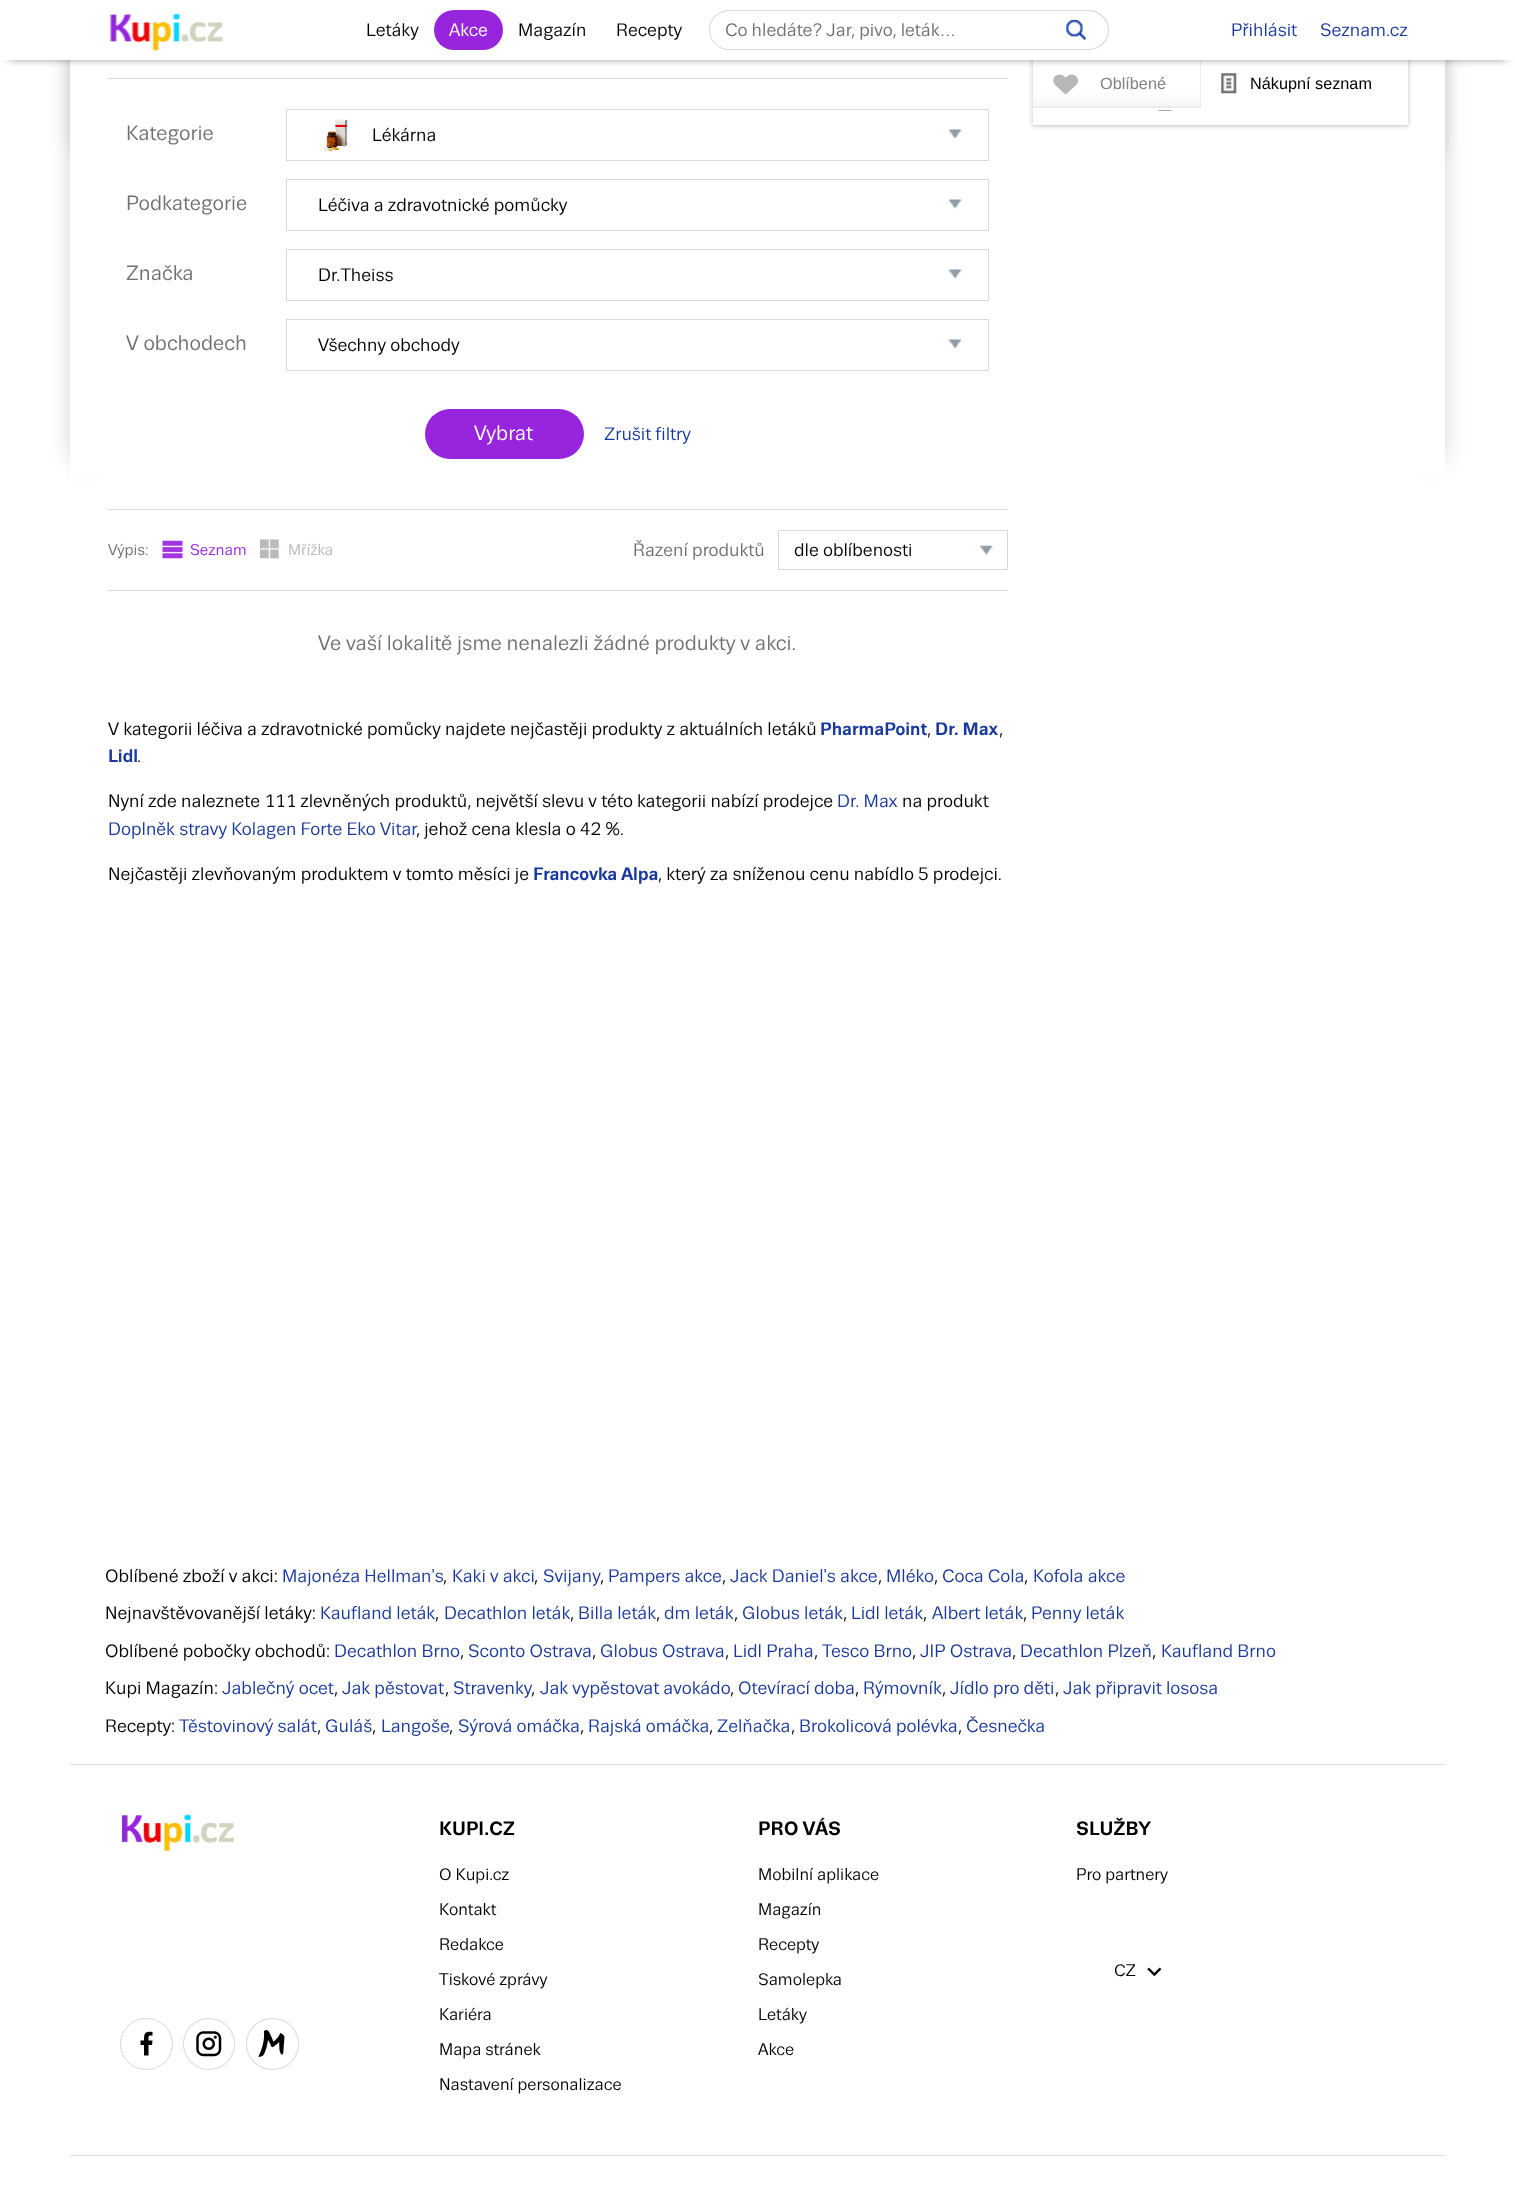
<svg xmlns="http://www.w3.org/2000/svg" xmlns:xlink="http://www.w3.org/1999/xlink" width="1515" height="2190" viewBox="0 0 1515 2190">
<style>
.cls-1{font:17.5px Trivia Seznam;fill:#000000}
.cls-2{font:17.5px Trivia Seznam;fill:#ffffff}
.cls-3{font:17.5px Trivia Seznam;fill:#707070}
.cls-4{font:17.5px Trivia Seznam;fill:#18389c}
.cls-5{font:16.25px Liberation Sans;fill:#808080}
.cls-6{font:16.25px Liberation Sans;fill:#000000}
.cls-7{font:20px Trivia Seznam;fill:#707070}
.cls-8{font:20px Trivia Seznam;fill:#ffffff}
.cls-9{font:15px Trivia Seznam;fill:#707070}
.cls-10{font:15px Trivia Seznam;fill:#9725dd}
.cls-11{font:15px Trivia Seznam;fill:#b9b9b9}
.cls-12{font:bold 17.5px Trivia Seznam;fill:#18389c}
.cls-13{font:bold 18.75px Trivia Seznam;fill:#000000}
.cls-14{font:16.25px Trivia Seznam;fill:#000000}
</style>
<defs>
<linearGradient id="g1" gradientUnits="userSpaceOnUse" x1="1117" y1="16" x2="1117" y2="61"><stop offset="0" stop-color="#ffffff"/><stop offset="0.67" stop-color="#ffffff"/><stop offset="1" stop-color="#f6f6f6"/></linearGradient>
<linearGradient id="g2" gradientUnits="userSpaceOnUse" x1="1117" y1="61" x2="1117" y2="106"><stop offset="0" stop-color="#ffffff"/><stop offset="0.67" stop-color="#ffffff"/><stop offset="1" stop-color="#f6f6f6"/></linearGradient>
</defs>
<rect width="100%" height="100%" fill="#ffffff"/>
<rect fill="#000000" fill-opacity="0.24" filter="blur(9.5px)" x="76" y="-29" width="1363" height="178"/>
<rect fill="#000000" fill-opacity="0.24" filter="blur(12.5px)" x="74" y="-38" width="19" height="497"/>
<rect fill="#000000" fill-opacity="0.24" filter="blur(12.5px)" x="1423" y="-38" width="18" height="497"/>
<rect fill="#ffffff" x="70" y="60" width="1375" height="417"/>
<rect fill="#000000" fill-opacity="0.24" filter="blur(2.5px)" x="1033" y="-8" width="375" height="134"/>
<rect fill="#ffffff" x="1033" y="60" width="375" height="65"/>
<rect fill="url(#g1)" x="1033" y="60" width="168" height="1"/>
<path fill="#ececec" d="M1201 60V108L1200 106V61Z"/>
<rect fill="#000000" filter="blur(5px)" x="9" y="53" width="1497" height="4"/>
<rect fill="#ffffff" x="0" y="0" width="1515" height="60"/>
<image xlink:href="image0.png" x="109" y="13" width="114" height="38"/>
<rect fill="#9725dd" x="434" y="10" width="69" height="40" rx="20"/>
<path fill="#d9d9d9" fill-rule="evenodd" d="M729 10H1049V50H729C718 50 709 41 709 30C709 19 718 10 729 10ZM729 11H1049V49H729C718 49 710 40 710 30C710 20 718 11 729 11Z"/>
<path fill="#d9d9d9" fill-rule="evenodd" d="M1049 10H1089C1100 10 1109 19 1109 30C1109 41 1100 50 1089 50H1049ZM1049 11H1089C1099 11 1108 20 1108 30C1108 40 1099 49 1089 49H1049Z"/>
<image xlink:href="image1.png" x="1066" y="20" width="20" height="20"/>
<rect fill="#d9d9d9" x="1033" y="125" width="375" height="1"/>
<image xlink:href="image2.png" x="1158" y="110" width="14" height="1"/>
<rect fill="url(#g2)" x="1033" y="95" width="167" height="11"/>
<path fill="#d9d9d9" fill-opacity="0.5" d="M1201 108H1032L1034 106H1200Z"/>
<image xlink:href="image3.png" x="1053" y="74" width="25" height="21"/>
<image xlink:href="image4.png" x="1221" y="73" width="16" height="21"/>
<rect fill="#d9d9d9" x="108" y="78" width="900" height="1"/>
<rect fill="none" stroke="#d9d9d9" x="286.5" y="109.5" width="702" height="51"/>
<image xlink:href="image5.png" x="323" y="119" width="26" height="33"/>
<image xlink:href="image6.png" x="948" y="129" width="14" height="10"/>
<rect fill="none" stroke="#d9d9d9" x="286.5" y="179.5" width="702" height="51"/>
<image xlink:href="image6.png" x="948" y="199" width="14" height="10"/>
<rect fill="none" stroke="#d9d9d9" x="286.5" y="249.5" width="702" height="51"/>
<image xlink:href="image6.png" x="948" y="269" width="14" height="10"/>
<rect fill="none" stroke="#d9d9d9" x="286.5" y="319.5" width="702" height="51"/>
<image xlink:href="image6.png" x="948" y="339" width="14" height="10"/>
<rect fill="#9725dd" x="425" y="409" width="159" height="50" rx="25"/>
<rect fill="#d9d9d9" x="108" y="509" width="900" height="1"/>
<image xlink:href="image7.png" x="162" y="540" width="21" height="19"/>
<image xlink:href="image8.png" x="260" y="539" width="19" height="20"/>
<rect fill="none" stroke="#d9d9d9" x="778.5" y="530.5" width="229" height="39"/>
<image xlink:href="image9.png" x="980" y="545" width="13" height="10"/>
<rect fill="#d9d9d9" x="108" y="590" width="900" height="1"/>
<rect fill="#dbdfe2" x="70" y="1764" width="1375" height="1"/>
<image xlink:href="image10.png" x="121" y="1814" width="113" height="38"/>
<rect fill="none" stroke="#d9d9d9" x="120.5" y="2018.5" width="52" height="51" rx="25.5"/>
<path fill="#000000" d="M144 2055.5H148.5V2045H152L152.5 2040.5H148.5C148.5 2036 148 2035.5 152.5 2035.5V2032C145 2031 144 2033 144 2040.5H140.5V2045H144Z"/>
<image xlink:href="image11.png" x="183" y="2018" width="52" height="52"/>
<image xlink:href="image12.png" x="246" y="2018" width="53" height="52"/>
<image xlink:href="image13.png" x="1147" y="1967" width="15" height="10"/>
<rect fill="#dbdfe2" x="70" y="2155" width="1375" height="1"/>
<text class="cls-1" x="366" y="36">Letáky</text>
<text class="cls-2" x="449" y="36">Akce</text>
<text class="cls-1" x="518" y="36">Magazín</text>
<text class="cls-1" x="616" y="36">Recepty</text>
<text class="cls-3" x="725" y="36">Co hledáte? Jar, pivo, leták…</text>
<text class="cls-4" x="1231" y="36">Přihlásit</text>
<text class="cls-4" x="1320" y="36">Seznam.cz</text>
<text class="cls-5" x="1100" y="89">Oblíbené</text>
<text class="cls-6" x="1250" y="89">Nákupní seznam</text>
<text class="cls-7" x="126" y="140">Kategorie</text>
<text class="cls-1" x="372" y="141">Lékárna</text>
<text class="cls-7" x="126" y="210">Podkategorie</text>
<text class="cls-1" x="318" y="211">Léčiva a zdravotnické pomůcky</text>
<text class="cls-7" x="126" y="280">Značka</text>
<text class="cls-1" x="318" y="281">Dr.Theiss</text>
<text class="cls-7" x="126" y="350">V obchodech</text>
<text class="cls-1" x="318" y="351">Všechny obchody</text>
<text class="cls-8" x="474" y="440">Vybrat</text>
<text class="cls-4" x="604" y="440">Zrušit filtry</text>
<text class="cls-9" x="108" y="555">Výpis:</text>
<text class="cls-10" x="190" y="555">Seznam</text>
<text class="cls-11" x="288" y="555">Mřížka</text>
<text class="cls-3" x="633" y="556">Řazení produktů</text>
<text class="cls-1" x="794" y="556">dle oblíbenosti</text>
<text class="cls-7" x="318" y="650">Ve vaší lokalitě jsme nenalezli žádné produkty v akci.</text>
<text class="cls-1" x="108" y="735">V kategorii léčiva a zdravotnické pomůcky najdete nejčastěji produkty z aktuálních letáků</text>
<text class="cls-12" x="820" y="735">PharmaPoint</text>
<text class="cls-1" x="927" y="735">,</text>
<text class="cls-12" x="935" y="735">Dr. Max</text>
<text class="cls-1" x="999" y="735">,</text>
<text class="cls-12" x="108" y="762">Lidl</text>
<text class="cls-1" x="137" y="762">.</text>
<text class="cls-1" x="108" y="807">Nyní zde naleznete 111 zlevněných produktů, největší slevu v této kategorii nabízí prodejce</text>
<text class="cls-4" x="837" y="807">Dr. Max</text>
<text class="cls-1" x="902" y="807">na produkt</text>
<text class="cls-4" x="108" y="835">Doplněk stravy Kolagen Forte Eko Vitar</text>
<text class="cls-1" x="416" y="835">, jehož cena klesla o 42 %.</text>
<text class="cls-1" x="108" y="880">Nejčastěji zlevňovaným produktem v tomto měsíci je</text>
<text class="cls-12" x="533" y="880">Francovka Alpa</text>
<text class="cls-1" x="658" y="880">, který za sníženou cenu nabídlo 5 prodejci.</text>
<text class="cls-1" x="105" y="1582">Oblíbené zboží v akci:</text>
<text class="cls-4" x="282" y="1582">Majonéza Hellman's</text>
<text class="cls-1" x="443" y="1582">,</text>
<text class="cls-4" x="452" y="1582">Kaki v akci</text>
<text class="cls-1" x="534" y="1582">,</text>
<text class="cls-4" x="543" y="1582">Svijany</text>
<text class="cls-1" x="600" y="1582">,</text>
<text class="cls-4" x="608" y="1582">Pampers akce</text>
<text class="cls-1" x="722" y="1582">,</text>
<text class="cls-4" x="730" y="1582">Jack Daniel's akce</text>
<text class="cls-1" x="878" y="1582">,</text>
<text class="cls-4" x="886" y="1582">Mléko</text>
<text class="cls-1" x="934" y="1582">,</text>
<text class="cls-4" x="942" y="1582">Coca Cola</text>
<text class="cls-1" x="1024" y="1582">,</text>
<text class="cls-4" x="1033" y="1582">Kofola akce</text>
<text class="cls-1" x="105" y="1619">Nejnavštěvovanější letáky:</text>
<text class="cls-4" x="320" y="1619">Kaufland leták</text>
<text class="cls-1" x="435" y="1619">,</text>
<text class="cls-4" x="444" y="1619">Decathlon leták</text>
<text class="cls-1" x="570" y="1619">,</text>
<text class="cls-4" x="578" y="1619">Billa leták</text>
<text class="cls-1" x="656" y="1619">,</text>
<text class="cls-4" x="664" y="1619">dm leták</text>
<text class="cls-1" x="734" y="1619">,</text>
<text class="cls-4" x="742" y="1619">Globus leták</text>
<text class="cls-1" x="843" y="1619">,</text>
<text class="cls-4" x="851" y="1619">Lidl leták</text>
<text class="cls-1" x="923" y="1619">,</text>
<text class="cls-4" x="932" y="1619">Albert leták</text>
<text class="cls-1" x="1023" y="1619">,</text>
<text class="cls-4" x="1031" y="1619">Penny leták</text>
<text class="cls-1" x="105" y="1657">Oblíbené pobočky obchodů:</text>
<text class="cls-4" x="334" y="1657">Decathlon Brno</text>
<text class="cls-1" x="460" y="1657">,</text>
<text class="cls-4" x="468" y="1657">Sconto Ostrava</text>
<text class="cls-1" x="592" y="1657">,</text>
<text class="cls-4" x="600" y="1657">Globus Ostrava</text>
<text class="cls-1" x="725" y="1657">,</text>
<text class="cls-4" x="733" y="1657">Lidl Praha</text>
<text class="cls-1" x="814" y="1657">,</text>
<text class="cls-4" x="822" y="1657">Tesco Brno</text>
<text class="cls-1" x="912" y="1657">,</text>
<text class="cls-4" x="920" y="1657">JIP Ostrava</text>
<text class="cls-1" x="1012" y="1657">,</text>
<text class="cls-4" x="1020" y="1657">Decathlon Plzeň</text>
<text class="cls-1" x="1152" y="1657">,</text>
<text class="cls-4" x="1161" y="1657">Kaufland Brno</text>
<text class="cls-1" x="105" y="1694">Kupi Magazín:</text>
<text class="cls-4" x="222" y="1694">Jablečný ocet</text>
<text class="cls-1" x="334" y="1694">,</text>
<text class="cls-4" x="342" y="1694">Jak pěstovat</text>
<text class="cls-1" x="445" y="1694">,</text>
<text class="cls-4" x="453" y="1694">Stravenky</text>
<text class="cls-1" x="531" y="1694">,</text>
<text class="cls-4" x="540" y="1694">Jak vypěstovat avokádo</text>
<text class="cls-1" x="730" y="1694">,</text>
<text class="cls-4" x="738" y="1694">Otevírací doba</text>
<text class="cls-1" x="855" y="1694">,</text>
<text class="cls-4" x="863" y="1694">Rýmovník</text>
<text class="cls-1" x="942" y="1694">,</text>
<text class="cls-4" x="950" y="1694">Jídlo pro děti</text>
<text class="cls-1" x="1055" y="1694">,</text>
<text class="cls-4" x="1063" y="1694">Jak připravit lososa</text>
<text class="cls-1" x="105" y="1732">Recepty:</text>
<text class="cls-4" x="179" y="1732">Těstovinový salát</text>
<text class="cls-1" x="317" y="1732">,</text>
<text class="cls-4" x="325" y="1732">Guláš</text>
<text class="cls-1" x="372" y="1732">,</text>
<text class="cls-4" x="381" y="1732">Langoše</text>
<text class="cls-1" x="449" y="1732">,</text>
<text class="cls-4" x="458" y="1732">Sýrová omáčka</text>
<text class="cls-1" x="580" y="1732">,</text>
<text class="cls-4" x="588" y="1732">Rajská omáčka</text>
<text class="cls-1" x="709" y="1732">,</text>
<text class="cls-4" x="717" y="1732">Zelňačka</text>
<text class="cls-1" x="791" y="1732">,</text>
<text class="cls-4" x="799" y="1732">Brokolicová polévka</text>
<text class="cls-1" x="958" y="1732">,</text>
<text class="cls-4" x="966" y="1732">Česnečka</text>
<text class="cls-13" x="439" y="1835">KUPI.CZ</text>
<text class="cls-14" x="439" y="1880">O Kupi.cz</text>
<text class="cls-14" x="439" y="1915">Kontakt</text>
<text class="cls-14" x="439" y="1950">Redakce</text>
<text class="cls-14" x="439" y="1985">Tiskové zprávy</text>
<text class="cls-14" x="439" y="2020">Kariéra</text>
<text class="cls-14" x="439" y="2055">Mapa stránek</text>
<text class="cls-14" x="439" y="2090">Nastavení personalizace</text>
<text class="cls-13" x="758" y="1835">PRO VÁS</text>
<text class="cls-14" x="758" y="1880">Mobilní aplikace</text>
<text class="cls-14" x="758" y="1915">Magazín</text>
<text class="cls-14" x="758" y="1950">Recepty</text>
<text class="cls-14" x="758" y="1985">Samolepka</text>
<text class="cls-14" x="758" y="2020">Letáky</text>
<text class="cls-14" x="758" y="2055">Akce</text>
<text class="cls-13" x="1076" y="1835">SLUŽBY</text>
<text class="cls-14" x="1076" y="1880">Pro partnery</text>
<text class="cls-14" x="1114" y="1976">CZ</text>
</svg>
